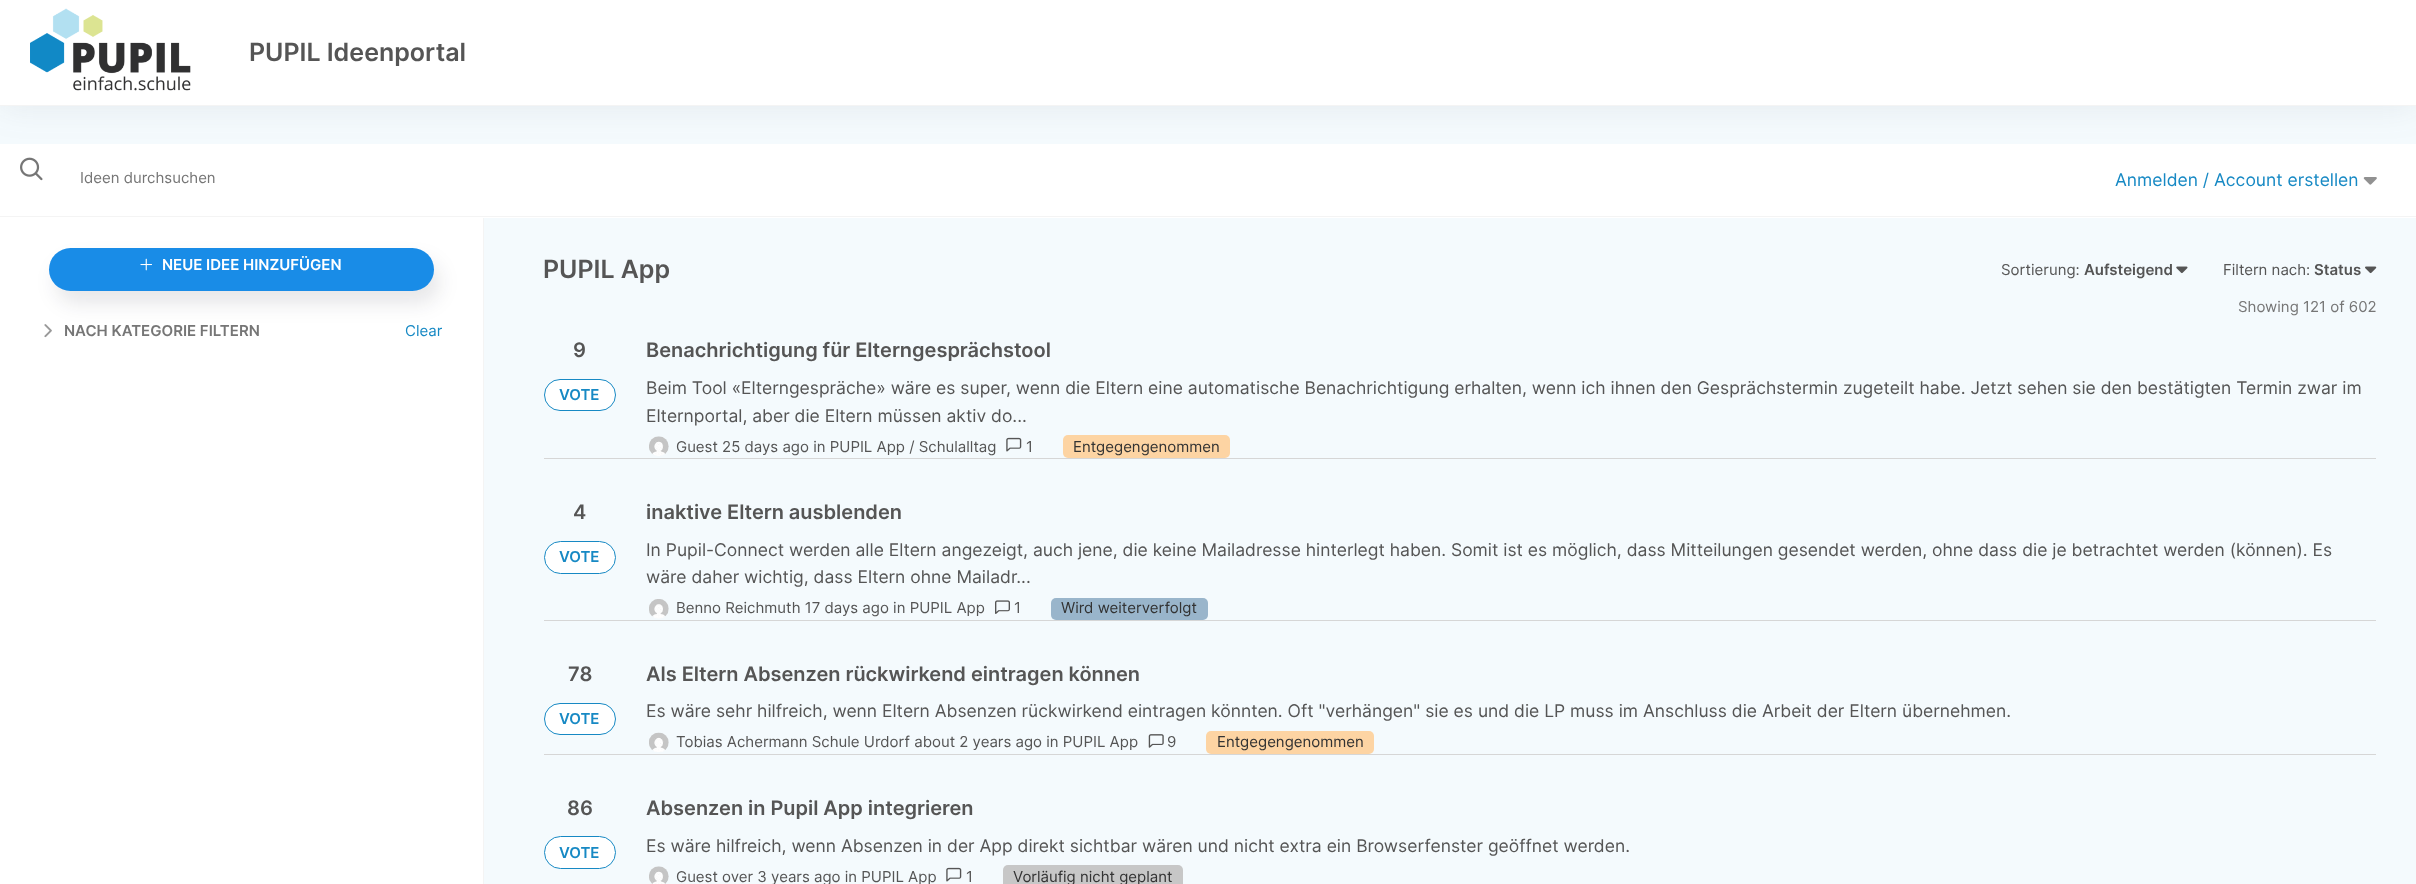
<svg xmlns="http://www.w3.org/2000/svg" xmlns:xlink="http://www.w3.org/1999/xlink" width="2416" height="884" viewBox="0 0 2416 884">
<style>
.cls-1{font:600 25px Inter;fill:#555555}
.cls-2{font:15px Inter;fill:#767676}
.cls-3{font:17.5px Inter;fill:#1789c4}
.cls-4{font:600 15px Inter;fill:#ffffff}
.cls-5{font:600 15px Inter;fill:#767676}
.cls-6{font:15px Inter;fill:#1789c4}
.cls-7{font:15px Inter;fill:#555555}
.cls-8{font:600 15px Inter;fill:#555555}
.cls-9{font:600 20px Inter;fill:#555555}
.cls-10{font:600 15px Inter;fill:#1789c4}
.cls-11{font:17.5px Inter;fill:#555555}
.cls-12{font:15px Inter;fill:#333333}
</style>
<rect width="100%" height="100%" fill="#f4fafd"/>
<rect fill="#5d5d66" fill-opacity="0.1" filter="blur(17.5px)" x="0" y="0" width="2416" height="106"/>
<rect fill="#ffffff" x="0" y="0" width="2416" height="105"/>
<rect fill="#f4f4f4" x="0" y="105" width="2416" height="1"/>
<image xlink:href="image0.png" x="30" y="8" width="161" height="83"/>
<rect fill="#ffffff" x="0" y="144" width="2416" height="74"/>
<rect fill="#f4f4f4" x="0" y="216" width="2416" height="1"/>
<image xlink:href="image1.png" x="20" y="157" width="23" height="24"/>
<image xlink:href="image2.png" x="2363" y="177" width="14" height="8"/>
<rect fill="#ffffff" x="0" y="218" width="483" height="666"/>
<rect fill="#f4f4f4" x="483" y="218" width="1" height="666"/>
<image xlink:href="image4.png" x="44" y="324" width="8" height="14"/>
<rect fill="#171724" fill-opacity="0.1" filter="blur(9.5px)" x="55" y="260" width="385" height="44" rx="22"/>
<rect fill="#198ce7" x="49" y="248" width="385" height="43" rx="21.5"/>
<image xlink:href="image3.png" x="140" y="258" width="12" height="13"/>
<image xlink:href="image5.png" x="2176" y="266" width="12" height="8"/>
<image xlink:href="image6.png" x="2365" y="266" width="12" height="8"/>
<rect fill="#d6d6d6" x="544" y="458" width="1832" height="1"/>
<rect fill="#ffffff" stroke="#1789c4" x="544.5" y="379.5" width="71" height="31" rx="15.5"/>
<image xlink:href="image7.png" x="649" y="436" width="20" height="20"/>
<image xlink:href="image8.png" x="1006" y="437" width="16" height="15"/>
<rect fill="#fdd4a3" x="1063" y="435" width="167" height="23" rx="5"/>
<rect fill="#d6d6d6" x="544" y="620" width="1832" height="1"/>
<rect fill="#ffffff" stroke="#1789c4" x="544.5" y="541.5" width="71" height="32" rx="16"/>
<image xlink:href="image9.png" x="649" y="599" width="20" height="20"/>
<image xlink:href="image10.png" x="995" y="600" width="15" height="14"/>
<rect fill="#99b5cb" x="1051" y="598" width="157" height="22" rx="5"/>
<rect fill="#d6d6d6" x="544" y="754" width="1832" height="1"/>
<rect fill="#ffffff" stroke="#1789c4" x="544.5" y="703.5" width="71" height="31" rx="15.5"/>
<image xlink:href="image11.png" x="649" y="732" width="20" height="20"/>
<image xlink:href="image12.png" x="1148" y="734" width="16" height="14"/>
<rect fill="#fdd4a3" x="1206" y="731" width="168" height="23" rx="5"/>
<rect fill="#ffffff" stroke="#1789c4" x="544.5" y="836.5" width="71" height="32" rx="16"/>
<image xlink:href="image13.png" x="649" y="866" width="20" height="18"/>
<image xlink:href="image8.png" x="946" y="867" width="16" height="15"/>
<rect fill="#c7c7c7" x="1003" y="865" width="180" height="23" rx="5"/>
<text class="cls-1" x="249" y="61">PUPIL Ideenportal</text>
<text class="cls-2" x="80" y="183">Ideen durchsuchen</text>
<text class="cls-3" x="2115" y="186">Anmelden / Account erstellen</text>
<text class="cls-4" x="162" y="270">NEUE IDEE HINZUFÜGEN</text>
<text class="cls-5" x="64" y="336">NACH KATEGORIE FILTERN</text>
<text class="cls-6" x="405" y="336">Clear</text>
<text class="cls-1" x="543" y="278">PUPIL App</text>
<text class="cls-7" x="2001" y="275">Sortierung:</text>
<text class="cls-8" x="2084" y="275">Aufsteigend</text>
<text class="cls-7" x="2223" y="275">Filtern nach:</text>
<text class="cls-8" x="2314" y="275">Status</text>
<text class="cls-2" x="2238" y="312">Showing 121 of 602</text>
<text class="cls-9" x="573" y="357">9</text>
<text class="cls-10" x="559" y="400">VOTE</text>
<text class="cls-9" x="646" y="357">Benachrichtigung für Elterngesprächstool</text>
<text class="cls-11"><tspan x="646" y="394">Beim Tool «Elterngespräche» wäre es super, wenn die Eltern eine automatische Benachrichtigung erhalten, wenn ich ihnen den Gesprächstermin zugeteilt habe. Jetzt sehen sie den bestätigten Termin zwar im</tspan><tspan x="646" y="422">Elternportal, aber die Eltern müssen aktiv do...</tspan></text>
<text class="cls-7" x="676" y="452">Guest 25 days ago in PUPIL App / Schulalltag</text>
<text class="cls-7" x="1026" y="452">1</text>
<text class="cls-12" x="1073" y="452">Entgegengenommen</text>
<text class="cls-9" x="573" y="519">4</text>
<text class="cls-10" x="559" y="562">VOTE</text>
<text class="cls-9" x="646" y="519">inaktive Eltern ausblenden</text>
<text class="cls-11"><tspan x="646" y="556">In Pupil-Connect werden alle Eltern angezeigt, auch jene, die keine Mailadresse hinterlegt haben. Somit ist es möglich, dass Mitteilungen gesendet werden, ohne dass die je betrachtet werden (können). Es</tspan><tspan x="646" y="583">wäre daher wichtig, dass Eltern ohne Mailadr...</tspan></text>
<text class="cls-7" x="676" y="613">Benno Reichmuth 17 days ago in PUPIL App</text>
<text class="cls-7" x="1014" y="613">1</text>
<text class="cls-12" x="1061" y="613">Wird weiterverfolgt</text>
<text class="cls-9" x="568" y="681">78</text>
<text class="cls-10" x="559" y="724">VOTE</text>
<text class="cls-9" x="646" y="681">Als Eltern Absenzen rückwirkend eintragen können</text>
<text class="cls-11" x="646" y="717">Es wäre sehr hilfreich, wenn Eltern Absenzen rückwirkend eintragen könnten. Oft "verhängen" sie es und die LP muss im Anschluss die Arbeit der Eltern übernehmen.</text>
<text class="cls-7" x="676" y="747">Tobias Achermann Schule Urdorf about 2 years ago in PUPIL App</text>
<text class="cls-7" x="1167" y="747">9</text>
<text class="cls-12" x="1217" y="747">Entgegengenommen</text>
<text class="cls-9" x="567" y="815">86</text>
<text class="cls-10" x="559" y="858">VOTE</text>
<text class="cls-9" x="646" y="815">Absenzen in Pupil App integrieren</text>
<text class="cls-11" x="646" y="852">Es wäre hilfreich, wenn Absenzen in der App direkt sichtbar wären und nicht extra ein Browserfenster geöffnet werden.</text>
<text class="cls-7" x="676" y="882">Guest over 3 years ago in PUPIL App</text>
<text class="cls-7" x="966" y="882">1</text>
<text class="cls-12" x="1013" y="882">Vorläufig nicht geplant</text>
</svg>
